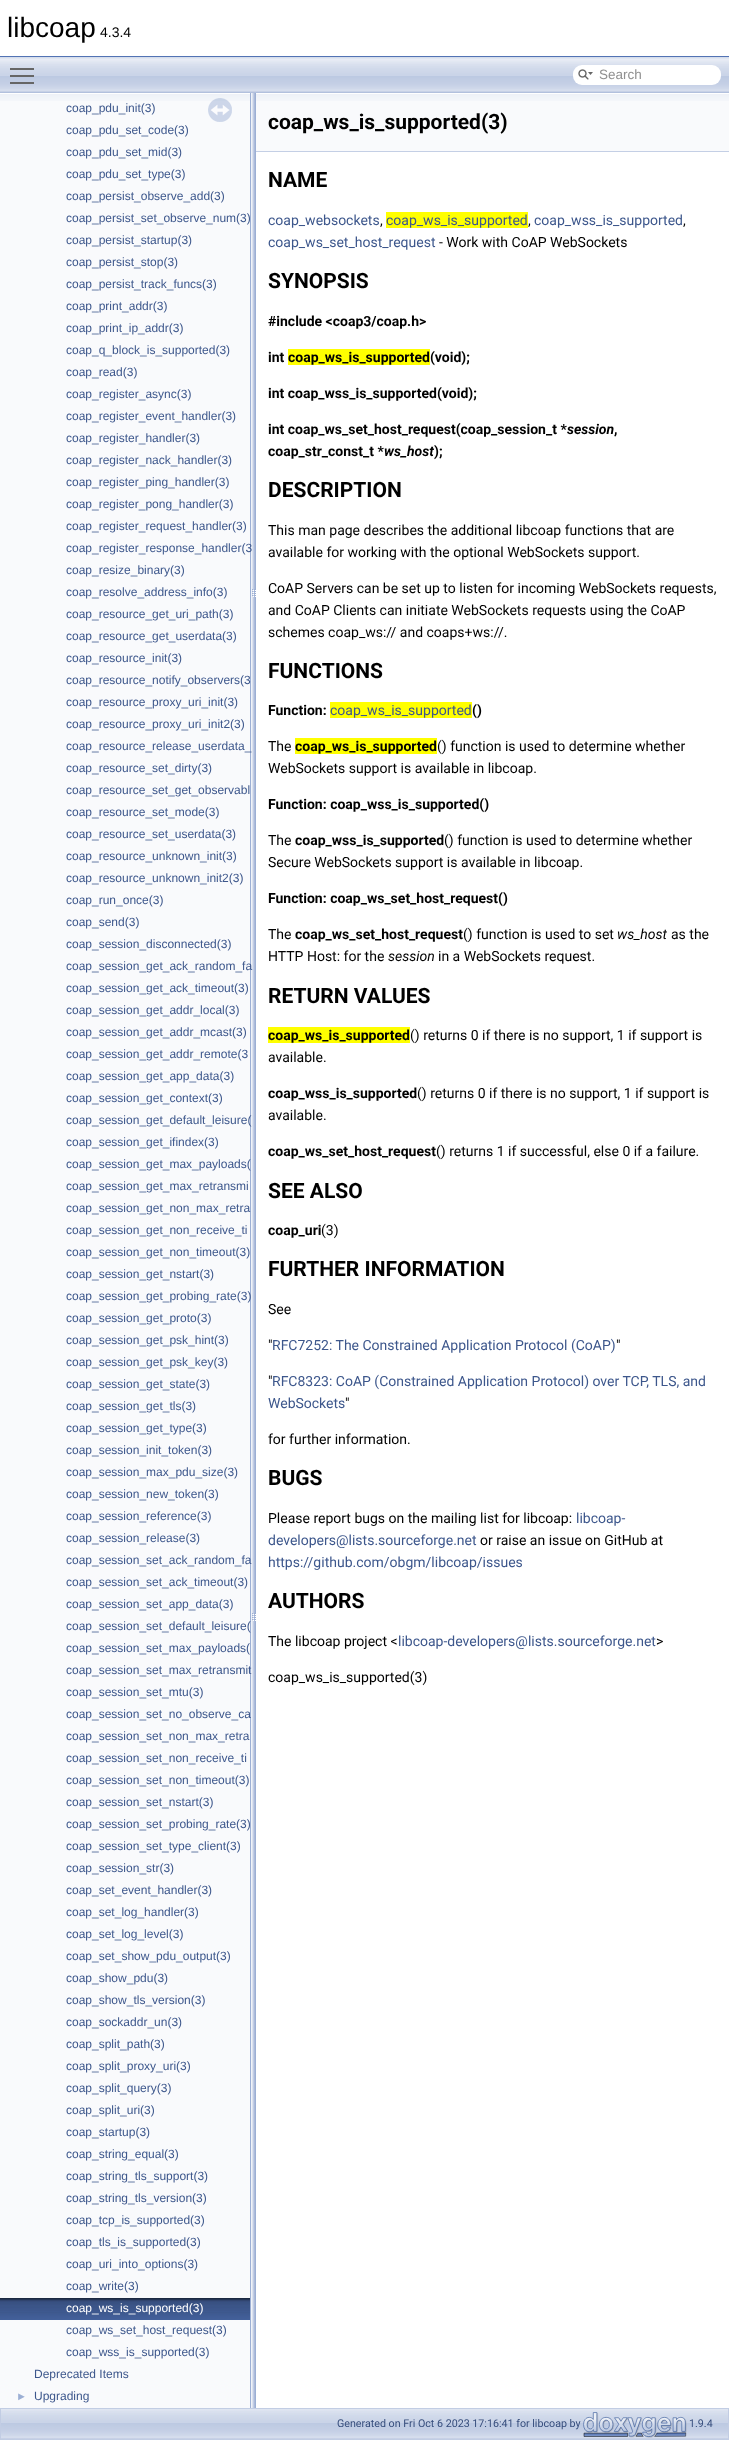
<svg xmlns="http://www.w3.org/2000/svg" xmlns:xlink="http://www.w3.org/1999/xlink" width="729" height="2440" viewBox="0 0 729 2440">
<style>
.cls-1{font:28px Liberation Sans;fill:#000000}
.cls-2{font:14px Liberation Sans;fill:#000000}
.cls-3{font:13.5px Liberation Sans;fill:#909090}
.cls-4{font:12px Liberation Sans;fill:#3d578c}
.cls-5{font:12px Liberation Sans;fill:#ffffff}
.cls-6{font:11px Liberation Sans;fill:#9cafd4}
.cls-7{font:bold 21px Roboto;fill:#000000}
.cls-8{font:14px Roboto;fill:#3d578c}
.cls-9{font:14px Roboto;fill:#000000}
.cls-10{font:bold 14px Roboto;fill:#000000}
.cls-11{font:italic bold 14px Roboto;fill:#000000}
.cls-12{font:italic 14px Roboto;fill:#000000}
.cls-13{font:10.7px Roboto;fill:#364d7c}
</style>
<rect width="100%" height="100%" fill="#ffffff"/>
<rect fill="#5373b4" x="0" y="56" width="729" height="1"/>
<image xlink:href="image0.png" x="0" y="57" width="729" height="36"/>
<rect fill="#666666" x="10" y="75" width="24" height="2"/>
<rect fill="#666666" x="10" y="68" width="24" height="2"/>
<rect fill="#666666" x="10" y="82" width="24" height="2"/>
<rect fill="#ffffff" x="573" y="65" width="148" height="20" rx="9"/>
<image xlink:href="image1.png" x="578" y="69" width="15" height="11"/>
<rect fill="#f9fafc" x="0" y="101" width="250" height="2307"/>
<image xlink:href="image2.png" x="0" y="93" width="250" height="8"/>
<image xlink:href="image3.png" x="208" y="98" width="24" height="24"/>
<image xlink:href="image4.png" x="0" y="2298" width="250" height="22"/>
<image xlink:href="image5.png" x="250" y="93" width="6" height="2315"/>
<rect fill="#f9fafc" x="256" y="101" width="473" height="50"/>
<image xlink:href="image6.png" x="256" y="93" width="473" height="8"/>
<rect fill="#c4cfe5" x="256" y="151" width="473" height="1"/>
<rect fill="#ffff00" x="386" y="212" width="142" height="16"/>
<rect fill="#ffff00" x="288" y="349" width="142" height="16"/>
<rect fill="#ffff00" x="330" y="702" width="142" height="16"/>
<rect fill="#ffff00" x="295" y="738" width="142" height="16"/>
<rect fill="#ffff00" x="268" y="1027" width="142" height="16"/>
<image xlink:href="image7.png" x="1" y="2409" width="727" height="30"/>
<rect fill="none" stroke="#c2cde4" x="0.5" y="2408.5" width="728" height="31"/>
<image xlink:href="image8.png" x="583" y="2412" width="104" height="26"/>
<text class="cls-1" x="7" y="37">libcoap</text>
<text class="cls-2" x="100" y="37">4.3.4</text>
<text class="cls-3" x="599" y="79">Search</text>
<text class="cls-4"><tspan x="66" y="112">coap_pdu_init(3)</tspan><tspan x="66" y="134">coap_pdu_set_code(3)</tspan><tspan x="66" y="156">coap_pdu_set_mid(3)</tspan><tspan x="66" y="178">coap_pdu_set_type(3)</tspan><tspan x="66" y="200">coap_persist_observe_add(3)</tspan><tspan x="66" y="222">coap_persist_set_observe_num(3)</tspan><tspan x="66" y="244">coap_persist_startup(3)</tspan><tspan x="66" y="266">coap_persist_stop(3)</tspan><tspan x="66" y="288">coap_persist_track_funcs(3)</tspan><tspan x="66" y="310">coap_print_addr(3)</tspan><tspan x="66" y="332">coap_print_ip_addr(3)</tspan><tspan x="66" y="354">coap_q_block_is_supported(3)</tspan><tspan x="66" y="376">coap_read(3)</tspan><tspan x="66" y="398">coap_register_async(3)</tspan><tspan x="66" y="420">coap_register_event_handler(3)</tspan><tspan x="66" y="442">coap_register_handler(3)</tspan><tspan x="66" y="464">coap_register_nack_handler(3)</tspan><tspan x="66" y="486">coap_register_ping_handler(3)</tspan><tspan x="66" y="508">coap_register_pong_handler(3)</tspan><tspan x="66" y="530">coap_register_request_handler(3)</tspan><tspan x="66" y="552">coap_register_response_handler(3</tspan><tspan x="66" y="574">coap_resize_binary(3)</tspan><tspan x="66" y="596">coap_resolve_address_info(3)</tspan><tspan x="66" y="618">coap_resource_get_uri_path(3)</tspan><tspan x="66" y="640">coap_resource_get_userdata(3)</tspan><tspan x="66" y="662">coap_resource_init(3)</tspan><tspan x="66" y="684">coap_resource_notify_observers(3</tspan><tspan x="66" y="706">coap_resource_proxy_uri_init(3)</tspan><tspan x="66" y="728">coap_resource_proxy_uri_init2(3)</tspan><tspan x="66" y="750">coap_resource_release_userdata_</tspan><tspan x="66" y="772">coap_resource_set_dirty(3)</tspan><tspan x="66" y="794">coap_resource_set_get_observabl</tspan><tspan x="66" y="816">coap_resource_set_mode(3)</tspan><tspan x="66" y="838">coap_resource_set_userdata(3)</tspan><tspan x="66" y="860">coap_resource_unknown_init(3)</tspan><tspan x="66" y="882">coap_resource_unknown_init2(3)</tspan><tspan x="66" y="904">coap_run_once(3)</tspan><tspan x="66" y="926">coap_send(3)</tspan><tspan x="66" y="948">coap_session_disconnected(3)</tspan><tspan x="66" y="970">coap_session_get_ack_random_fa</tspan><tspan x="66" y="992">coap_session_get_ack_timeout(3)</tspan><tspan x="66" y="1014">coap_session_get_addr_local(3)</tspan><tspan x="66" y="1036">coap_session_get_addr_mcast(3)</tspan><tspan x="66" y="1058">coap_session_get_addr_remote(3</tspan><tspan x="66" y="1080">coap_session_get_app_data(3)</tspan><tspan x="66" y="1102">coap_session_get_context(3)</tspan><tspan x="66" y="1124">coap_session_get_default_leisure(</tspan><tspan x="66" y="1146">coap_session_get_ifindex(3)</tspan><tspan x="66" y="1168">coap_session_get_max_payloads(</tspan><tspan x="66" y="1190">coap_session_get_max_retransmi</tspan><tspan x="66" y="1212">coap_session_get_non_max_retra</tspan><tspan x="66" y="1234">coap_session_get_non_receive_ti</tspan><tspan x="66" y="1256">coap_session_get_non_timeout(3)</tspan><tspan x="66" y="1278">coap_session_get_nstart(3)</tspan><tspan x="66" y="1300">coap_session_get_probing_rate(3)</tspan><tspan x="66" y="1322">coap_session_get_proto(3)</tspan><tspan x="66" y="1344">coap_session_get_psk_hint(3)</tspan><tspan x="66" y="1366">coap_session_get_psk_key(3)</tspan><tspan x="66" y="1388">coap_session_get_state(3)</tspan><tspan x="66" y="1410">coap_session_get_tls(3)</tspan><tspan x="66" y="1432">coap_session_get_type(3)</tspan><tspan x="66" y="1454">coap_session_init_token(3)</tspan><tspan x="66" y="1476">coap_session_max_pdu_size(3)</tspan><tspan x="66" y="1498">coap_session_new_token(3)</tspan><tspan x="66" y="1520">coap_session_reference(3)</tspan><tspan x="66" y="1542">coap_session_release(3)</tspan><tspan x="66" y="1564">coap_session_set_ack_random_fa</tspan><tspan x="66" y="1586">coap_session_set_ack_timeout(3)</tspan><tspan x="66" y="1608">coap_session_set_app_data(3)</tspan><tspan x="66" y="1630">coap_session_set_default_leisure(</tspan><tspan x="66" y="1652">coap_session_set_max_payloads(</tspan><tspan x="66" y="1674">coap_session_set_max_retransmit</tspan><tspan x="66" y="1696">coap_session_set_mtu(3)</tspan><tspan x="66" y="1718">coap_session_set_no_observe_ca</tspan><tspan x="66" y="1740">coap_session_set_non_max_retra</tspan><tspan x="66" y="1762">coap_session_set_non_receive_ti</tspan><tspan x="66" y="1784">coap_session_set_non_timeout(3)</tspan><tspan x="66" y="1806">coap_session_set_nstart(3)</tspan><tspan x="66" y="1828">coap_session_set_probing_rate(3)</tspan><tspan x="66" y="1850">coap_session_set_type_client(3)</tspan><tspan x="66" y="1872">coap_session_str(3)</tspan><tspan x="66" y="1894">coap_set_event_handler(3)</tspan><tspan x="66" y="1916">coap_set_log_handler(3)</tspan><tspan x="66" y="1938">coap_set_log_level(3)</tspan><tspan x="66" y="1960">coap_set_show_pdu_output(3)</tspan><tspan x="66" y="1982">coap_show_pdu(3)</tspan><tspan x="66" y="2004">coap_show_tls_version(3)</tspan><tspan x="66" y="2026">coap_sockaddr_un(3)</tspan><tspan x="66" y="2048">coap_split_path(3)</tspan><tspan x="66" y="2070">coap_split_proxy_uri(3)</tspan><tspan x="66" y="2092">coap_split_query(3)</tspan><tspan x="66" y="2114">coap_split_uri(3)</tspan><tspan x="66" y="2136">coap_startup(3)</tspan><tspan x="66" y="2158">coap_string_equal(3)</tspan><tspan x="66" y="2180">coap_string_tls_support(3)</tspan><tspan x="66" y="2202">coap_string_tls_version(3)</tspan><tspan x="66" y="2224">coap_tcp_is_supported(3)</tspan><tspan x="66" y="2246">coap_tls_is_supported(3)</tspan><tspan x="66" y="2268">coap_uri_into_options(3)</tspan><tspan x="66" y="2290">coap_write(3)</tspan></text>
<text class="cls-5" x="66" y="2312">coap_ws_is_supported(3)</text>
<text class="cls-4"><tspan x="66" y="2334">coap_ws_set_host_request(3)</tspan><tspan x="66" y="2356">coap_wss_is_supported(3)</tspan></text>
<text class="cls-4" x="34" y="2378">Deprecated Items</text>
<text class="cls-6" x="16" y="2400">►</text>
<text class="cls-4" x="34" y="2400">Upgrading</text>
<text class="cls-7" x="268" y="129">coap_ws_is_supported(3)</text>
<text class="cls-7" x="268" y="187">NAME</text>
<text class="cls-8" x="268" y="225">coap_websockets</text>
<text class="cls-9" x="380" y="225">,</text>
<text class="cls-8" x="386" y="225">coap_ws_is_supported</text>
<text class="cls-9" x="528" y="225">,</text>
<text class="cls-8" x="534" y="225">coap_wss_is_supported</text>
<text class="cls-9" x="683" y="225">,</text>
<text class="cls-8" x="268" y="247">coap_ws_set_host_request</text>
<text class="cls-9" x="439" y="247">- Work with CoAP WebSockets</text>
<text class="cls-7" x="268" y="288">SYNOPSIS</text>
<text class="cls-10" x="268" y="326">#include &lt;coap3/coap.h&gt;</text>
<text class="cls-10" x="268" y="362">int</text>
<text class="cls-10" x="288" y="362">coap_ws_is_supported(void);</text>
<text class="cls-10" x="268" y="398">int coap_wss_is_supported(void);</text>
<text class="cls-10" x="268" y="434">int coap_ws_set_host_request(coap_session_t *</text>
<text class="cls-11" x="567" y="434">session</text>
<text class="cls-10" x="614" y="434">,</text>
<text class="cls-10" x="268" y="456">coap_str_const_t *</text>
<text class="cls-11" x="384" y="456">ws_host</text>
<text class="cls-10" x="434" y="456">);</text>
<text class="cls-7" x="268" y="497">DESCRIPTION</text>
<text class="cls-9"><tspan x="268" y="535">This man page describes the additional libcoap functions that are</tspan><tspan x="268" y="557">available for working with the optional WebSockets support.</tspan></text>
<text class="cls-9"><tspan x="268" y="593">CoAP Servers can be set up to listen for incoming WebSockets requests,</tspan><tspan x="268" y="615">and CoAP Clients can initiate WebSockets requests using the CoAP</tspan><tspan x="268" y="637">schemes coap_ws:// and coaps+ws://.</tspan></text>
<text class="cls-7" x="268" y="678">FUNCTIONS</text>
<text class="cls-10" x="268" y="715">Function:</text>
<text class="cls-8" x="330" y="715">coap_ws_is_supported</text>
<text class="cls-10" x="472" y="715">()</text>
<text class="cls-9" x="268" y="751">The</text>
<text class="cls-10" x="295" y="751">coap_ws_is_supported</text>
<text class="cls-9" x="437" y="751">() function is used to determine whether</text>
<text class="cls-9" x="268" y="773">WebSockets support is available in libcoap.</text>
<text class="cls-10" x="268" y="809">Function: coap_wss_is_supported()</text>
<text class="cls-9" x="268" y="845">The</text>
<text class="cls-10" x="295" y="845">coap_wss_is_supported</text>
<text class="cls-9" x="444" y="845">() function is used to determine whether</text>
<text class="cls-9" x="268" y="867">Secure WebSockets support is available in libcoap.</text>
<text class="cls-10" x="268" y="903">Function: coap_ws_set_host_request()</text>
<text class="cls-9" x="268" y="939">The</text>
<text class="cls-10" x="295" y="939">coap_ws_set_host_request</text>
<text class="cls-9" x="463" y="939">() function is used to set</text>
<text class="cls-12" x="617" y="939">ws_host</text>
<text class="cls-9" x="671" y="939">as the</text>
<text class="cls-9" x="268" y="961">HTTP Host: for the</text>
<text class="cls-12" x="388" y="961">session</text>
<text class="cls-9" x="438" y="961">in a WebSockets request.</text>
<text class="cls-7" x="268" y="1003">RETURN VALUES</text>
<text class="cls-10" x="268" y="1040">coap_ws_is_supported</text>
<text class="cls-9" x="410" y="1040">() returns 0 if there is no support, 1 if support is</text>
<text class="cls-9" x="268" y="1062">available.</text>
<text class="cls-10" x="268" y="1098">coap_wss_is_supported</text>
<text class="cls-9" x="417" y="1098">() returns 0 if there is no support, 1 if support is</text>
<text class="cls-9" x="268" y="1120">available.</text>
<text class="cls-10" x="268" y="1156">coap_ws_set_host_request</text>
<text class="cls-9" x="436" y="1156">() returns 1 if successful, else 0 if a failure.</text>
<text class="cls-7" x="268" y="1198">SEE ALSO</text>
<text class="cls-10" x="268" y="1235">coap_uri</text>
<text class="cls-9" x="321" y="1235">(3)</text>
<text class="cls-7" x="268" y="1276">FURTHER INFORMATION</text>
<text class="cls-9" x="268" y="1314">See</text>
<text class="cls-9" x="268" y="1350">"</text>
<text class="cls-8" x="272" y="1350">RFC7252: The Constrained Application Protocol (CoAP)</text>
<text class="cls-9" x="616" y="1350">"</text>
<text class="cls-9" x="268" y="1386">"</text>
<text class="cls-8" x="272" y="1386">RFC8323: CoAP (Constrained Application Protocol) over TCP, TLS, and</text>
<text class="cls-8" x="268" y="1408">WebSockets</text>
<text class="cls-9" x="345" y="1408">"</text>
<text class="cls-9" x="268" y="1444">for further information.</text>
<text class="cls-7" x="268" y="1485">BUGS</text>
<text class="cls-9" x="268" y="1523">Please report bugs on the mailing list for libcoap:</text>
<text class="cls-8" x="576" y="1523">libcoap-</text>
<text class="cls-8" x="268" y="1545">developers@lists.sourceforge.net</text>
<text class="cls-9" x="480" y="1545">or raise an issue on GitHub at</text>
<text class="cls-8" x="268" y="1567">https://github.com/obgm/libcoap/issues</text>
<text class="cls-7" x="268" y="1608">AUTHORS</text>
<text class="cls-9" x="268" y="1646">The libcoap project &lt;</text>
<text class="cls-8" x="398" y="1646">libcoap-developers@lists.sourceforge.net</text>
<text class="cls-9" x="656" y="1646">&gt;</text>
<text class="cls-9" x="268" y="1682">coap_ws_is_supported(3)</text>
<text class="cls-13" x="337" y="2427">Generated on Fri Oct 6 2023 17:16:41 for libcoap by</text>
<text class="cls-13" x="689" y="2427">1.9.4</text>
</svg>
